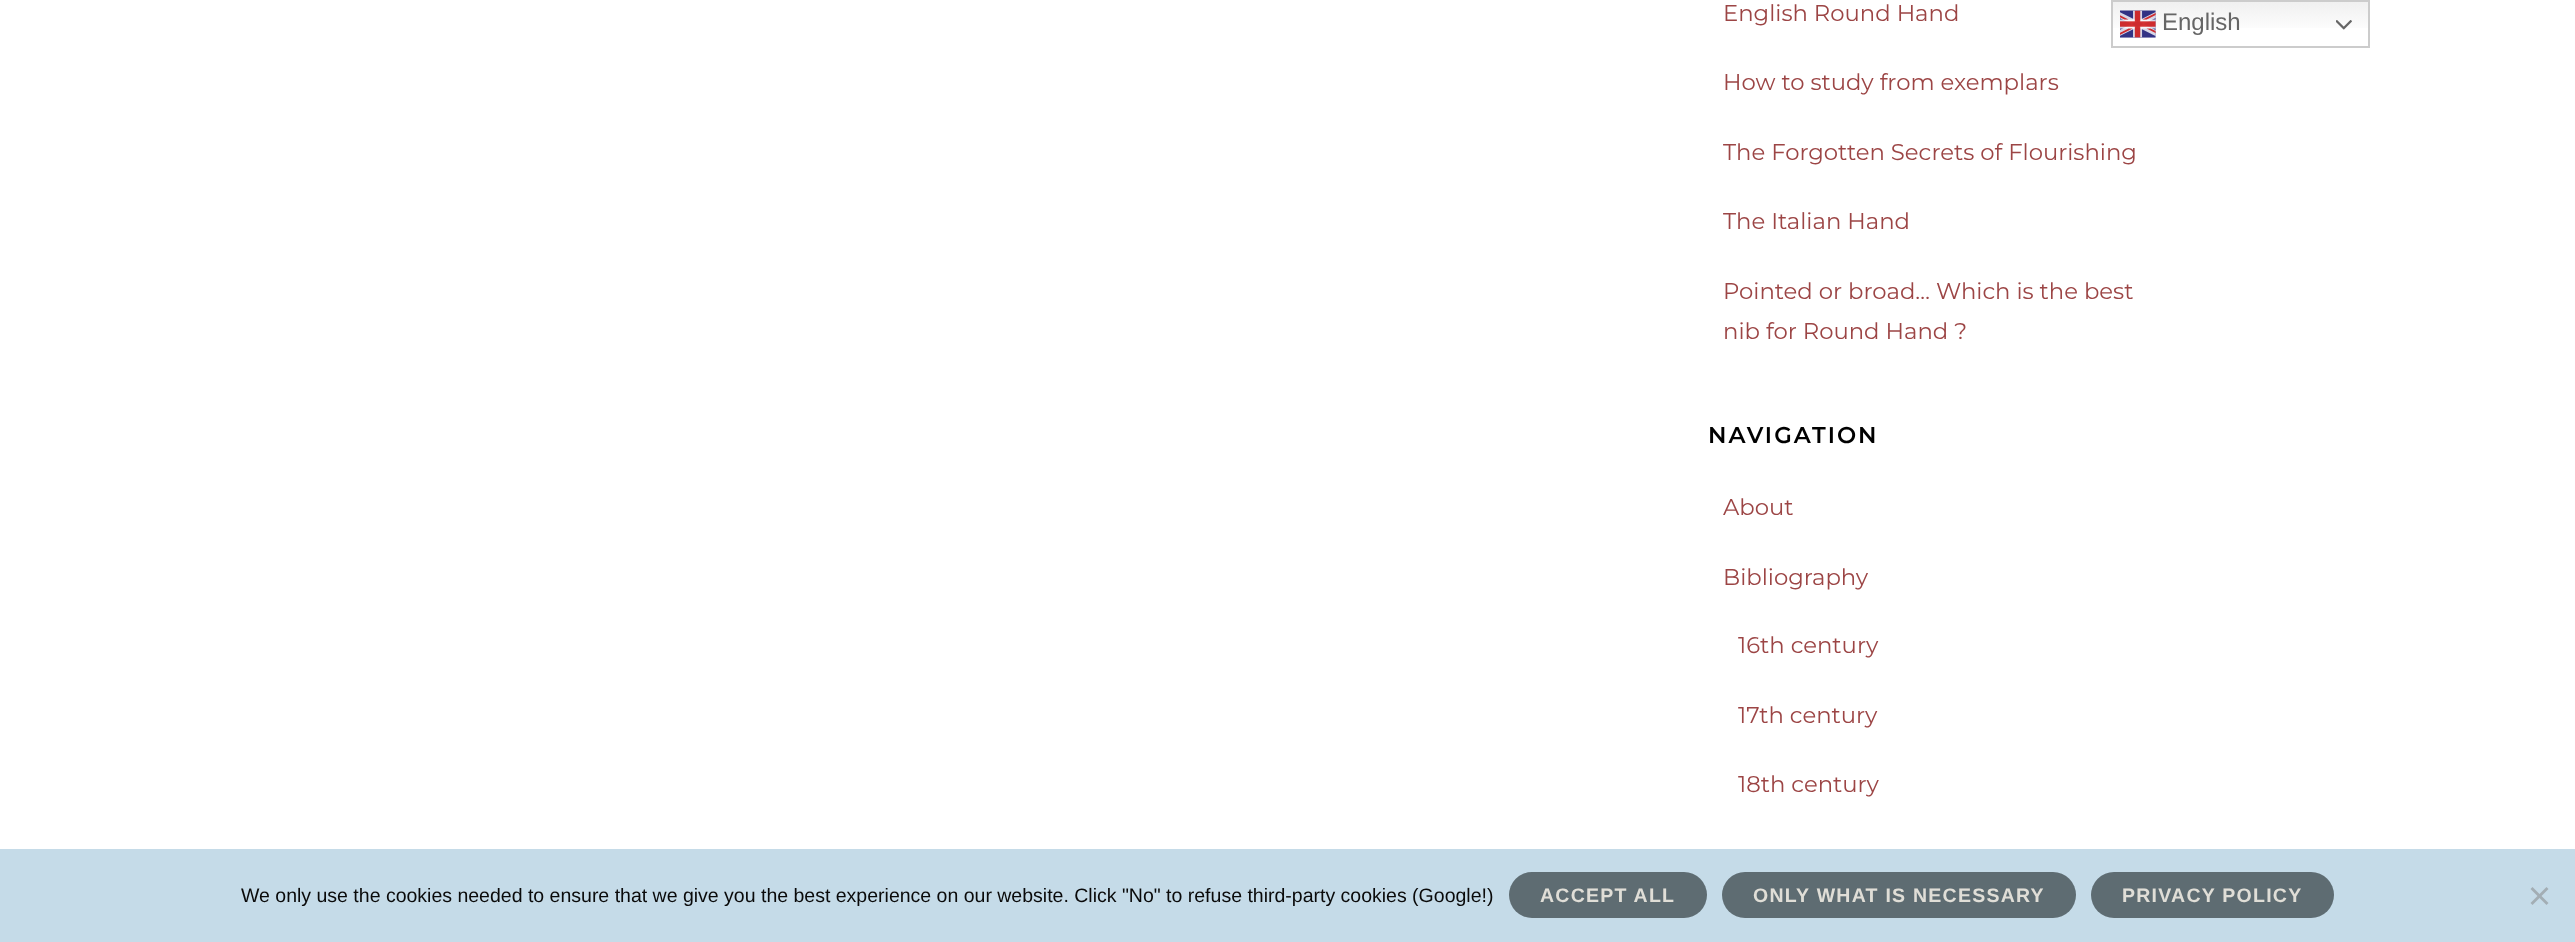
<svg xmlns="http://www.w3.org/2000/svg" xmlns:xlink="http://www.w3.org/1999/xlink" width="2575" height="942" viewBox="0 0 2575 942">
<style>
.cls-1{font:100 22.75px Montserrat;fill:#9c4545}
.cls-2{font:600 22.75px Montserrat;letter-spacing:2px;fill:#000000}
.cls-3{font:24px Liberation Sans;fill:#666666}
.cls-4{font:19.5px Liberation Sans;fill:#0a0a0a}
.cls-5{font:bold 19.5px Liberation Sans;letter-spacing:1.25px;fill:#e0ded7}
</style>
<defs>
<linearGradient id="g1" gradientUnits="userSpaceOnUse" x1="2240" y1="0" x2="2240" y2="48"><stop offset="0" stop-color="#efefef"/><stop offset="0.7" stop-color="#ffffff"/></linearGradient>
</defs>
<rect width="100%" height="100%" fill="#ffffff"/>
<rect fill="url(#g1)" x="2113" y="2" width="255" height="26"/>
<rect fill="none" stroke="#cccccc" stroke-width="2" x="2112" y="1" width="257" height="46"/>
<image xlink:href="image0.png" x="2120" y="10" width="36" height="28"/>
<image xlink:href="image1.png" x="2336" y="20" width="16" height="10"/>
<rect fill="#c5dbe8" x="0" y="849" width="2575" height="93"/>
<rect fill="#5e6c72" x="1509" y="872" width="198" height="46" rx="23"/>
<rect fill="#5e6c72" x="1722" y="872" width="354" height="46" rx="23"/>
<rect fill="#5e6c72" x="2091" y="872" width="243" height="46" rx="23"/>
<path fill="#a3aeb4" d="M2546.5 887L2548.5 889L2532.5 905L2530.5 903Z"/>
<path fill="#a3aeb4" d="M2530.5 889L2532.5 887L2548.5 903L2546.5 905Z"/>
<text class="cls-1" x="1723" y="21">English Round Hand</text>
<text class="cls-1" x="1723" y="90">How to study from exemplars</text>
<text class="cls-1" x="1723" y="160">The Forgotten Secrets of Flourishing</text>
<text class="cls-1" x="1723" y="229">The Italian Hand</text>
<text class="cls-1"><tspan x="1723" y="299">Pointed or broad… Which is the best</tspan><tspan x="1723" y="339">nib for Round Hand ?</tspan></text>
<text class="cls-2" x="1708" y="443">NAVIGATION</text>
<text class="cls-1" x="1723" y="515">About</text>
<text class="cls-1" x="1723" y="585">Bibliography</text>
<text class="cls-1" x="1738" y="653">16th century</text>
<text class="cls-1" x="1738" y="723">17th century</text>
<text class="cls-1" x="1738" y="792">18th century</text>
<text class="cls-3" x="2162" y="30">English</text>
<text class="cls-4" x="241" y="902">We only use the cookies needed to ensure that we give you the best experience on our website. Click "No" to refuse third-party cookies (Google!)</text>
<text class="cls-5" x="1540" y="902">ACCEPT ALL</text>
<text class="cls-5" x="1753" y="902">ONLY WHAT IS NECESSARY</text>
<text class="cls-5" x="2122" y="902">PRIVACY POLICY</text>
</svg>
